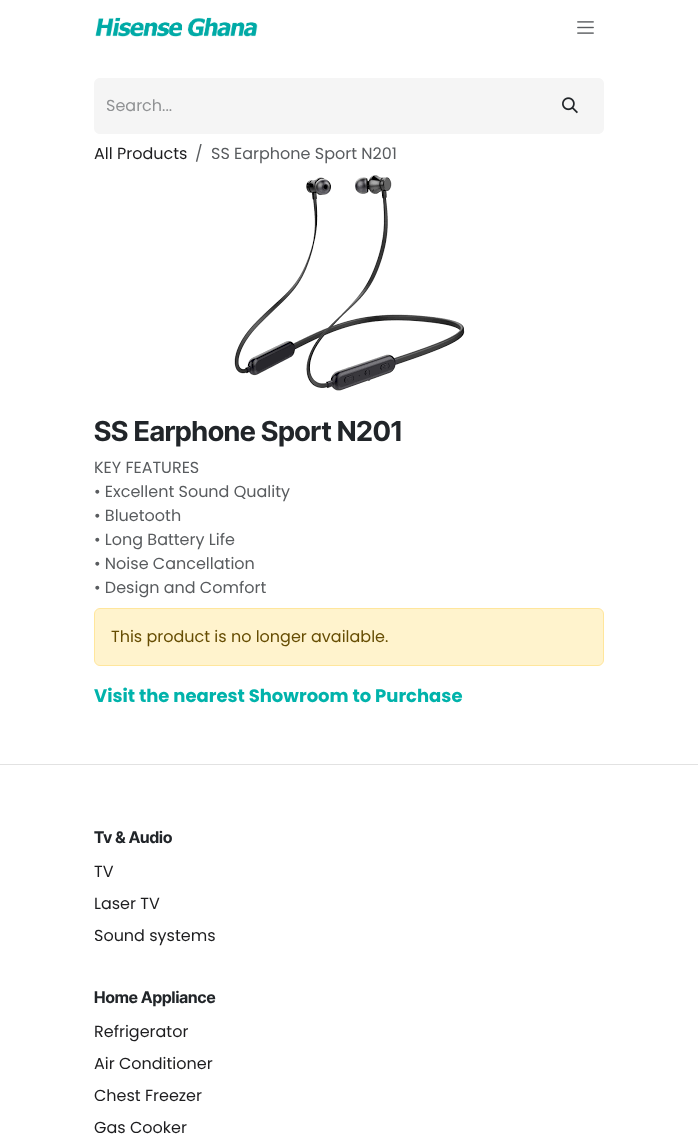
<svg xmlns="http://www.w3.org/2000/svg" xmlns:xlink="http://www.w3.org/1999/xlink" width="698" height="1135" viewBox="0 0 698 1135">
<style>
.cls-1{font:16px Poppins;fill:#909294}
.cls-2{font:16px Poppins;fill:#1d1d1f}
.cls-3{font:16px Poppins;fill:#595c5f}
.cls-4{font:bold 27.5px Inter Tight;fill:#212529}
.cls-5{font:16px Poppins;fill:#664d03}
.cls-6{font:bold 18px Poppins;fill:#01b3ab}
.cls-7{font:bold 16px Inter Tight;fill:#212529}
</style>
<rect width="100%" height="100%" fill="#ffffff"/>
<image xlink:href="image0.png" x="95" y="17" width="163" height="20"/>
<image xlink:href="image1.png" x="577" y="21" width="17" height="13"/>
<path fill="#f5f5f5" d="M100 78H537V134H100C96.5 134 94 131.5 94 128V84C94 80.5 96.5 78 100 78Z"/>
<path fill="#f5f5f5" d="M536 78H598C601.5 78 604 80.5 604 84V128C604 131.5 601.5 134 598 134H536Z"/>
<image xlink:href="image2.png" x="562" y="97" width="16" height="17"/>
<image xlink:href="image3.png" x="234" y="175" width="231" height="216"/>
<rect fill="#fff3cd" stroke="#ffe69c" x="94.5" y="608.5" width="509" height="57" rx="5.5"/>
<rect fill="#e2e2e2" x="0" y="764" width="698" height="1"/>
<text class="cls-1" x="106" y="111">Search...</text>
<text class="cls-2" x="94" y="159">All Products</text>
<text class="cls-3" x="195" y="159">/</text>
<text class="cls-3" x="211" y="159">SS Earphone Sport N201</text>
<text class="cls-4" x="94" y="441">SS Earphone Sport N201</text>
<text class="cls-3"><tspan x="94" y="473">KEY FEATURES</tspan><tspan x="94" y="497">• Excellent Sound Quality</tspan><tspan x="94" y="521">• Bluetooth</tspan><tspan x="94" y="545">• Long Battery Life</tspan><tspan x="94" y="569">• Noise Cancellation</tspan><tspan x="94" y="593">• Design and Comfort</tspan></text>
<text class="cls-5" x="111" y="642">This product is no longer available.</text>
<text class="cls-6" x="94" y="702">Visit the nearest Showroom to Purchase</text>
<text class="cls-7" x="94" y="843">Tv &amp; Audio</text>
<text class="cls-2" x="94" y="877">TV</text>
<text class="cls-2" x="94" y="909">Laser TV</text>
<text class="cls-2" x="94" y="941">Sound systems</text>
<text class="cls-7" x="94" y="1003">Home Appliance</text>
<text class="cls-2" x="94" y="1037">Refrigerator</text>
<text class="cls-2" x="94" y="1069">Air Conditioner</text>
<text class="cls-2" x="94" y="1101">Chest Freezer</text>
<text class="cls-2" x="94" y="1133">Gas Cooker</text>
</svg>
